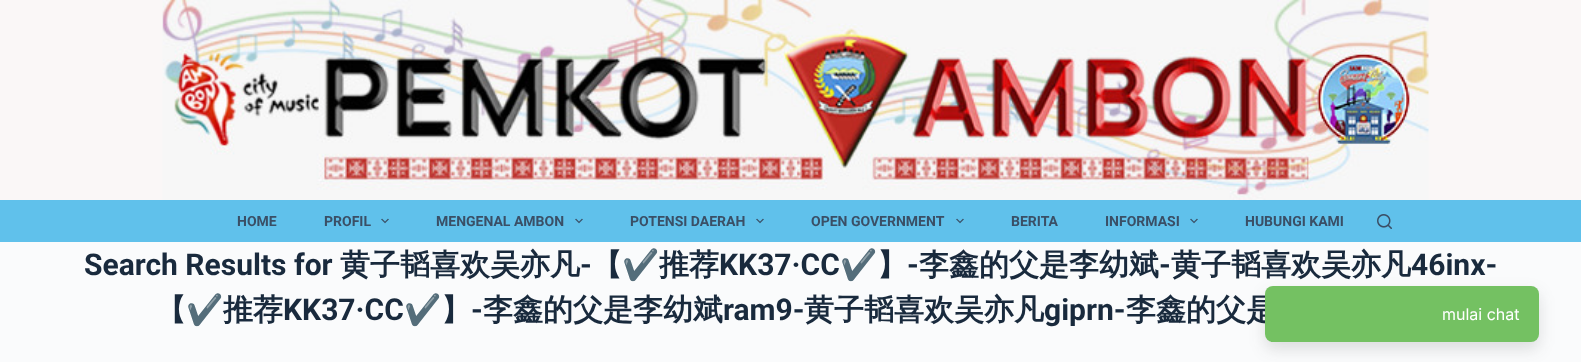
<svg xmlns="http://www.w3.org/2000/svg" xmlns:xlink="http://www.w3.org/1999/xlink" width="1581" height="362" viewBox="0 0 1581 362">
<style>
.cls-1{font:bold 14px Roboto;fill:#3a4f66}
.cls-2{font:bold 30px Roboto;fill:#192a3d}
.cls-3{font:bold 30px WenQuanYi Zen Hei;fill:#192a3d}
.cls-4{font:bold 30px Noto Color Emoji;fill:#192a3d}
.cls-5{font:16px Inter;fill:#ffffff}
</style>
<rect width="100%" height="100%" fill="#fafbfc"/>
<rect fill="#faf7f7" x="0" y="0" width="1581" height="200"/>
<image xlink:href="image0.png" x="162" y="0" width="1267" height="200"/>
<rect fill="#60c1eb" x="0" y="200" width="1581" height="42"/>
<image xlink:href="image1.png" x="381" y="218" width="8" height="6"/>
<image xlink:href="image1.png" x="575" y="218" width="8" height="6"/>
<image xlink:href="image1.png" x="756" y="218" width="8" height="6"/>
<image xlink:href="image1.png" x="956" y="218" width="8" height="6"/>
<image xlink:href="image1.png" x="1190" y="218" width="8" height="6"/>
<image xlink:href="image2.png" x="1377" y="214" width="15" height="15"/>
<rect fill="#2e2e2e" fill-opacity="0.15" filter="blur(8px)" x="1265" y="293" width="274" height="56" rx="8"/>
<text class="cls-1" x="237" y="226">HOME</text>
<text class="cls-1" x="324" y="226">PROFIL</text>
<text class="cls-1" x="436" y="226">MENGENAL AMBON</text>
<text class="cls-1" x="630" y="226">POTENSI DAERAH</text>
<text class="cls-1" x="811" y="226">OPEN GOVERNMENT</text>
<text class="cls-1" x="1011" y="226">BERITA</text>
<text class="cls-1" x="1105" y="226">INFORMASI</text>
<text class="cls-1" x="1245" y="226">HUBUNGI KAMI</text>
<text class="cls-2" x="84" y="275">Search Results for</text>
<text class="cls-3" x="340" y="275">黄子韬喜欢吴亦凡</text>
<text class="cls-2" x="580" y="275">-</text>
<text class="cls-3" x="592" y="275">【</text>
<text class="cls-4" x="622" y="275">✔️</text>
<text class="cls-3" x="659" y="275">推荐</text>
<text class="cls-2" x="719" y="275">KK37·CC</text>
<text class="cls-4" x="840" y="275">✔️</text>
<text class="cls-3" x="877" y="275">】</text>
<text class="cls-2" x="907" y="275">-</text>
<text class="cls-3" x="919" y="275">李鑫的父是李幼斌</text>
<text class="cls-2" x="1159" y="275">-</text>
<text class="cls-3" x="1171" y="275">黄子韬喜欢吴亦凡</text>
<text class="cls-2" x="1411" y="275">46inx-</text>
<text class="cls-3" x="156" y="320">【</text>
<text class="cls-4" x="186" y="320">✔️</text>
<text class="cls-3" x="223" y="320">推荐</text>
<text class="cls-2" x="283" y="320">KK37·CC</text>
<text class="cls-4" x="404" y="320">✔️</text>
<text class="cls-3" x="441" y="320">】</text>
<text class="cls-2" x="471" y="320">-</text>
<text class="cls-3" x="483" y="320">李鑫的父是李幼斌</text>
<text class="cls-2" x="723" y="320">ram9-</text>
<text class="cls-3" x="804" y="320">黄子韬喜欢吴亦凡</text>
<text class="cls-2" x="1044" y="320">giprn-</text>
<text class="cls-3" x="1126" y="320">李鑫的父是</text>
<rect fill="#74c162" x="1265" y="286" width="274" height="56" rx="8"/>
<text class="cls-5" x="1442" y="320">mulai chat</text>
</svg>
